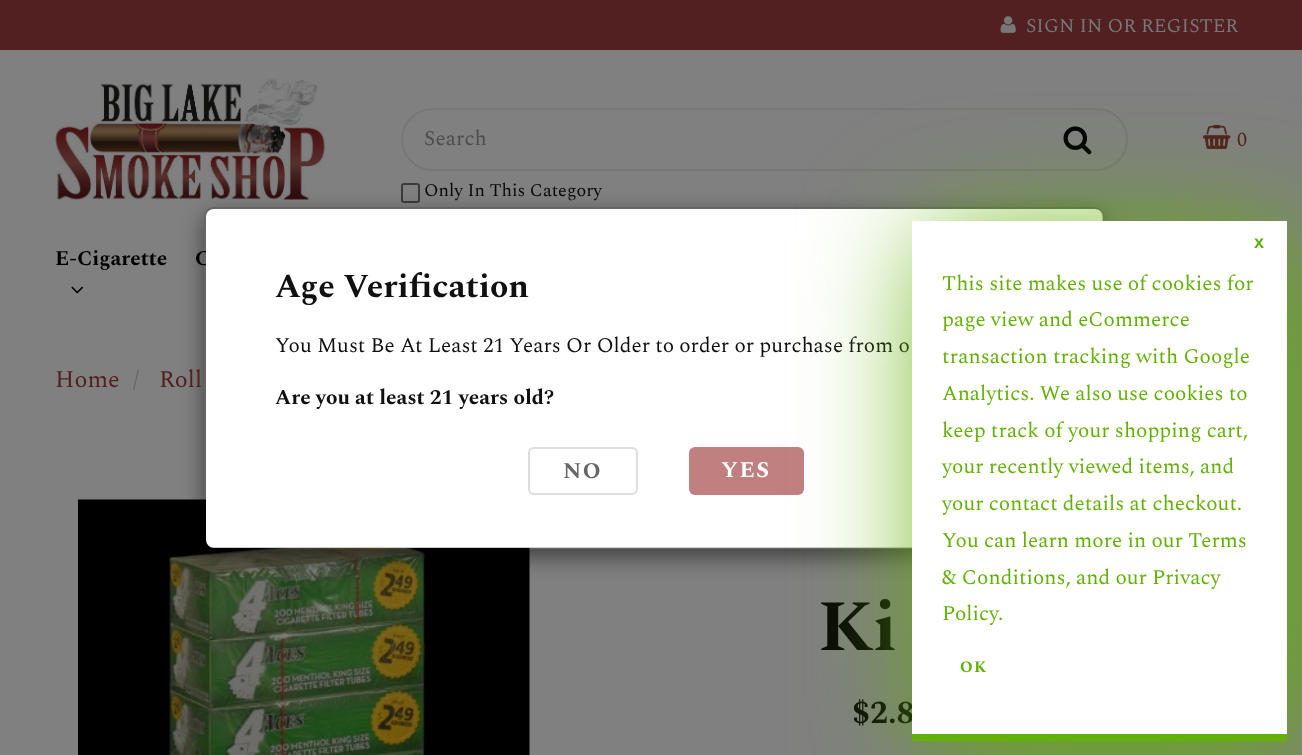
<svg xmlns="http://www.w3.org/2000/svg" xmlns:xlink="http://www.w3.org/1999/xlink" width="1302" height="755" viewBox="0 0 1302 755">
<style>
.cls-1{font:19.5px Spectral;fill:#777777}
.cls-2{font:21px Spectral;fill:#4d4d4d}
.cls-3{font:18px Spectral;fill:#080808}
.cls-4{font:20px Spectral;fill:#522020}
.cls-5{font:bold 21px Spectral;fill:#000000}
.cls-6{font:24px Spectral;fill:#522020}
.cls-7{font:24px Spectral;fill:#666666}
.cls-8{font:bold 72px Spectral;fill:#080808}
.cls-9{font:bold 32px Spectral;fill:#080808}
.cls-10{font:bold 33.5px Spectral;fill:#101010}
.cls-11{font:21px Spectral;fill:#101010}
.cls-12{font:bold 21px Spectral;fill:#101010}
.cls-13{font:bold 22.5px Spectral;letter-spacing:1.5px;fill:#666666}
.cls-14{font:bold 18px Liberation Sans;fill:#63b108}
.cls-15{font:bold 16px Spectral;letter-spacing:1.5px;fill:#63b108}
.cls-16{font:21px Spectral;fill:#63b108}
.cls-17{font:bold 22.5px Spectral;letter-spacing:1.5px;fill:#ffffff}
</style>
<defs>
<clipPath id="clip1"><path d="M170 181H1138V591H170ZM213 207H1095C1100 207 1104 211 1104 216V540C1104 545 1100 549 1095 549H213C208 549 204 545 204 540V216C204 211 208 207 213 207Z" clip-rule="evenodd"/></clipPath>
</defs>
<rect width="100%" height="100%" fill="#808080"/>
<rect fill="#522020" x="0" y="0" width="1302" height="50"/>
<image xlink:href="image0.png" x="1000" y="16" width="16" height="17"/>
<image xlink:href="image1.png" x="55" y="79" width="270" height="121"/>
<rect fill="none" stroke="#777777" stroke-width="2" x="402" y="109" width="725" height="61" rx="30.5"/>
<rect fill="none" stroke="#3b3b3b" stroke-width="2" x="402" y="184" width="17" height="18" rx="2"/>
<image xlink:href="image2.png" x="1063" y="126" width="29" height="29"/>
<image xlink:href="image3.png" x="1203" y="124" width="28" height="25"/>
<image xlink:href="image4.png" x="71" y="286" width="13" height="8"/>
<image xlink:href="image5.png" x="78" y="499" width="452" height="256"/>
<g clip-path="url(#clip1)">
<rect fill="#000000" fill-opacity="0.5" filter="blur(11px)" x="204" y="215" width="900" height="342" rx="9"/>
</g>
<text class="cls-1" x="1026" y="32">SIGN IN OR REGISTER</text>
<text class="cls-2" x="424" y="145">Search</text>
<text class="cls-3" x="424" y="196">Only In This Category</text>
<text class="cls-4" x="1237" y="146">0</text>
<text class="cls-5" x="55" y="265">E-Cigarette</text>
<text class="cls-5" x="195" y="265">C</text>
<text class="cls-6" x="55" y="387">Home</text>
<text class="cls-7" x="133" y="387">/</text>
<text class="cls-6" x="159" y="387">Roll</text>
<text class="cls-8" x="818" y="650">Ki</text>
<text class="cls-9" x="852" y="723">$2.8</text>
<rect fill="#ffffff" x="206" y="209" width="897" height="339" rx="8"/>
<rect fill="none" stroke="#000000" stroke-opacity="0.2" stroke-width="2" x="205" y="208" width="898" height="340" rx="8"/>
<text class="cls-10" x="275" y="297">Age Verification</text>
<text class="cls-11" x="275" y="352">You Must Be At Least 21 Years Or Older to order or purchase from o</text>
<text class="cls-12" x="275" y="404">Are you at least 21 years old?</text>
<rect fill="none" stroke="#dddddd" stroke-width="2" x="529" y="448" width="108" height="46" rx="5"/>
<text class="cls-13" x="563" y="478">NO</text>
<rect fill="#c08080" x="689" y="447" width="115" height="48" rx="6"/>
<rect fill="#63b108" filter="blur(60px)" x="927" y="236" width="375" height="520"/>
<rect fill="#ffffff" x="912" y="221" width="375" height="513"/>
<text class="cls-14" x="1254" y="248">x</text>
<text class="cls-15" x="960" y="672">OK</text>
<text class="cls-16" x="942" y="620">Policy</text>
<text class="cls-16" x="998" y="620">.</text>
<text class="cls-16" x="942" y="584">&amp; Conditions, and our Privacy</text>
<text class="cls-16" x="942" y="547">You can learn more in our Terms</text>
<text class="cls-16" x="942" y="510">your contact details at checkout.</text>
<text class="cls-16" x="942" y="473">your recently viewed items, and</text>
<text class="cls-16" x="942" y="437">keep track of your shopping cart,</text>
<text class="cls-16" x="942" y="400">Analytics. We also use cookies to</text>
<text class="cls-16" x="942" y="363">transaction tracking with Google</text>
<text class="cls-16" x="942" y="326">page view and eCommerce</text>
<text class="cls-16" x="942" y="290">This site makes use of cookies for</text>
<rect fill="#63b108" x="912" y="734" width="375" height="7"/>
<text class="cls-17" x="721" y="477">YES</text>
</svg>
